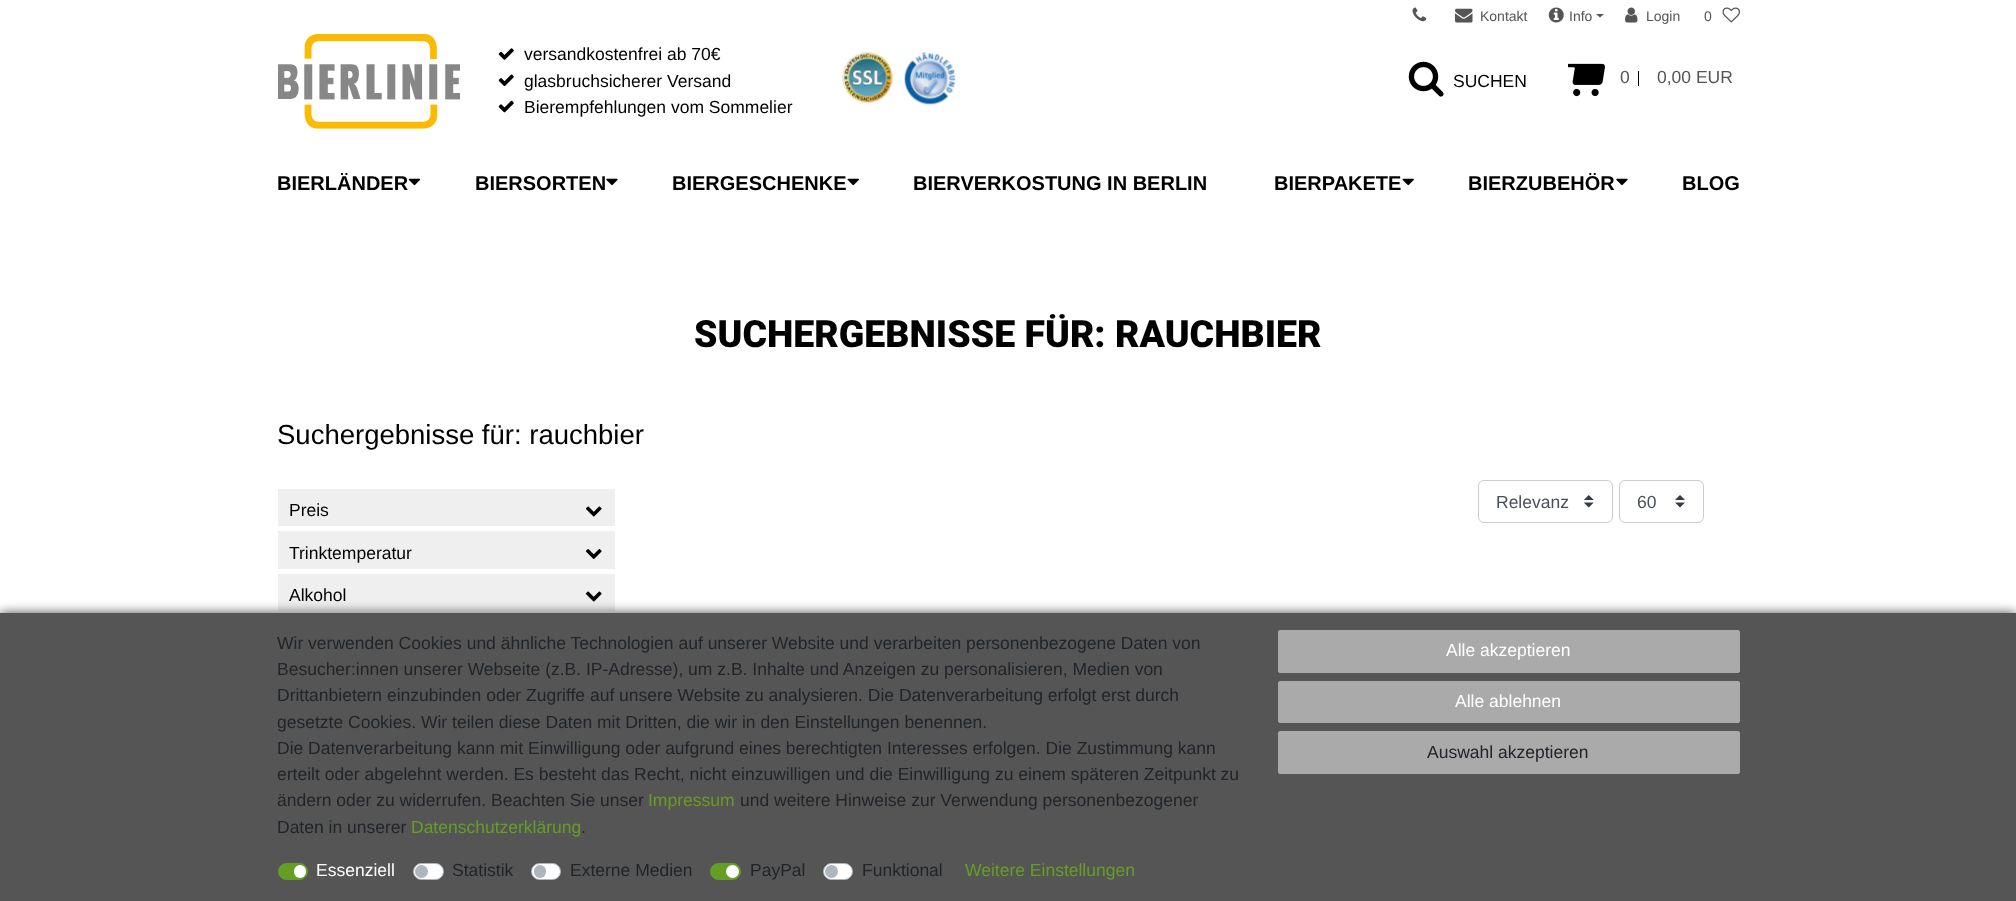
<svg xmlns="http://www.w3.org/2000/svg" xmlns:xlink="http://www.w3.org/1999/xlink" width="2016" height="901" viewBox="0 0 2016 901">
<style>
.cls-1{font:14px Liberation Sans;fill:#555555}
.cls-2{font:17.5px Liberation Sans;fill:#555555}
.cls-3{font:17.5px Liberation Sans;fill:#000000}
.cls-4{font:bold 20px Liberation Sans;fill:#000000}
.cls-5{font:900 37.5px Roboto;fill:#000000}
.cls-6{font:27.5px Liberation Sans;fill:#000000}
.cls-7{font:17.5px Liberation Sans;fill:#495057}
.cls-8{font:17.5px Liberation Sans;fill:#212529}
.cls-9{font:17.5px Liberation Sans;fill:#669e25}
.cls-10{font:17.5px Liberation Sans;fill:#ffffff}
</style>
<defs>
<clipPath id="clip1"><rect x="1638" y="493" width="30" height="20"/></clipPath>
</defs>
<rect width="100%" height="100%" fill="#ffffff"/>
<image xlink:href="image0.png" x="1412" y="7" width="15" height="15"/>
<image xlink:href="image1.png" x="1455" y="8" width="18" height="15"/>
<image xlink:href="image2.png" x="1548" y="7" width="16" height="16"/>
<path fill="#555555" d="M1596 14H1604L1600 17.5Z"/>
<image xlink:href="image3.png" x="1625" y="7" width="13" height="16"/>
<image xlink:href="image4.png" x="1722" y="7" width="18" height="16"/>
<image xlink:href="image5.png" x="1568" y="63" width="37" height="34"/>
<rect fill="#000000" x="1638" y="71" width="1" height="15"/>
<image xlink:href="image6.png" x="278" y="34" width="182" height="95"/>
<image xlink:href="image7.png" x="498" y="48" width="16" height="12"/>
<image xlink:href="image8.png" x="498" y="74" width="16" height="13"/>
<image xlink:href="image9.png" x="498" y="100" width="16" height="13"/>
<image xlink:href="image10.png" x="842" y="52" width="52" height="51"/>
<image xlink:href="image11.png" x="904" y="52" width="52" height="53"/>
<image xlink:href="image12.png" x="1408" y="61" width="36" height="36"/>
<image xlink:href="image13.png" x="408" y="178" width="13" height="8"/>
<image xlink:href="image14.png" x="606" y="178" width="12" height="8"/>
<image xlink:href="image15.png" x="847" y="178" width="12" height="8"/>
<image xlink:href="image15.png" x="1402" y="178" width="12" height="8"/>
<image xlink:href="image14.png" x="1616" y="178" width="12" height="8"/>
<rect fill="#efefef" x="278" y="489" width="337" height="37"/>
<image xlink:href="image16.png" x="585" y="506" width="17" height="11"/>
<rect fill="#efefef" x="278" y="531" width="337" height="38"/>
<image xlink:href="image17.png" x="585" y="549" width="17" height="10"/>
<rect fill="#efefef" x="278" y="574" width="337" height="37"/>
<image xlink:href="image16.png" x="585" y="591" width="17" height="11"/>
<image xlink:href="image18.png" x="1584" y="495" width="10" height="13"/>
<rect fill="none" stroke="#cccccc" x="1478.5" y="480.5" width="134" height="42" rx="5.5"/>
<image xlink:href="image19.png" x="1675" y="495" width="10" height="13"/>
<rect fill="none" stroke="#cccccc" x="1619.5" y="480.5" width="84" height="42" rx="5.5"/>
<rect fill="#000000" fill-opacity="0.7" filter="blur(6px)" x="0" y="613" width="2016" height="288"/>
<rect fill="#555555" x="0" y="613" width="2016" height="288"/>
<rect fill="#669e25" stroke="#669e25" x="278.5" y="863.5" width="29" height="16" rx="8"/>
<rect fill="#ffffff" x="294" y="865" width="12" height="13" rx="6"/>
<rect fill="#ffffff" stroke="#adb5bd" x="413.5" y="863.5" width="30" height="16" rx="8"/>
<circle fill="#adb5bd" cx="421.5" cy="871.5" r="6.5"/>
<rect fill="#ffffff" stroke="#adb5bd" x="531.5" y="863.5" width="29" height="16" rx="8"/>
<rect fill="#adb5bd" x="534" y="865" width="12" height="13" rx="6"/>
<rect fill="#669e25" stroke="#669e25" x="710.5" y="863.5" width="30" height="16" rx="8"/>
<circle fill="#ffffff" cx="732.5" cy="871.5" r="6.5"/>
<rect fill="#ffffff" stroke="#adb5bd" x="823.5" y="863.5" width="29" height="16" rx="8"/>
<circle fill="#adb5bd" cx="831.5" cy="871.5" r="6.5"/>
<rect fill="#aaaaaa" stroke="#aaaaaa" x="1278.5" y="630.5" width="461" height="42" rx="1.5"/>
<rect fill="#aaaaaa" stroke="#aaaaaa" x="1278.5" y="681.5" width="461" height="41" rx="1.5"/>
<rect fill="#aaaaaa" stroke="#aaaaaa" x="1278.5" y="731.5" width="461" height="42" rx="1.5"/>
<text class="cls-1" x="1480" y="21">Kontakt</text>
<text class="cls-1" x="1569" y="21">Info</text>
<text class="cls-1" x="1646" y="21">Login</text>
<text class="cls-1" x="1704" y="21">0</text>
<text class="cls-2" x="1620" y="83">0</text>
<text class="cls-2" x="1657" y="83">0,00 EUR</text>
<text class="cls-3"><tspan x="524" y="60">versandkostenfrei ab 70€</tspan><tspan x="524" y="87">glasbruchsicherer Versand</tspan><tspan x="524" y="113">Bierempfehlungen vom Sommelier</tspan></text>
<text class="cls-3" x="1453" y="87">SUCHEN</text>
<text class="cls-4" x="277" y="190">BIERLÄNDER</text>
<text class="cls-4" x="475" y="190">BIERSORTEN</text>
<text class="cls-4" x="672" y="190">BIERGESCHENKE</text>
<text class="cls-4" x="913" y="190">BIERVERKOSTUNG IN BERLIN</text>
<text class="cls-4" x="1274" y="190">BIERPAKETE</text>
<text class="cls-4" x="1468" y="190">BIERZUBEHÖR</text>
<text class="cls-4" x="1682" y="190">BLOG</text>
<text class="cls-5" x="694" y="347">SUCHERGEBNISSE FÜR: RAUCHBIER</text>
<text class="cls-6" x="277" y="444">Suchergebnisse für: rauchbier</text>
<text class="cls-3" x="289" y="516">Preis</text>
<text class="cls-3" x="289" y="559">Trinktemperatur</text>
<text class="cls-3" x="289" y="601">Alkohol</text>
<text class="cls-7" x="1496" y="508">Relevanz</text>
<g clip-path="url(#clip1)">
<text class="cls-7" x="1637" y="508">60</text>
</g>
<text class="cls-8"><tspan x="277" y="649">Wir verwenden Cookies und ähnliche Technologien auf unserer Website und verarbeiten personenbezogene Daten von</tspan><tspan x="277" y="675">Besucher:innen unserer Webseite (z.B. IP-Adresse), um z.B. Inhalte und Anzeigen zu personalisieren, Medien von</tspan><tspan x="277" y="701">Drittanbietern einzubinden oder Zugriffe auf unsere Website zu analysieren. Die Datenverarbeitung erfolgt erst durch</tspan><tspan x="277" y="728">gesetzte Cookies. Wir teilen diese Daten mit Dritten, die wir in den Einstellungen benennen.</tspan><tspan x="277" y="754">Die Datenverarbeitung kann mit Einwilligung oder aufgrund eines berechtigten Interesses erfolgen. Die Zustimmung kann</tspan><tspan x="277" y="780">erteilt oder abgelehnt werden. Es besteht das Recht, nicht einzuwilligen und die Einwilligung zu einem späteren Zeitpunkt zu</tspan><tspan x="277" y="806">ändern oder zu widerrufen. Beachten Sie unser</tspan></text>
<text class="cls-9" x="648" y="806">Impressum</text>
<text class="cls-8" x="740" y="806">und weitere Hinweise zur Verwendung personenbezogener</text>
<text class="cls-8" x="277" y="833">Daten in unserer</text>
<text class="cls-9" x="411" y="833">Datenschutzerklärung</text>
<text class="cls-8" x="581" y="833">.</text>
<text class="cls-10" x="316" y="876">Essenziell</text>
<text class="cls-8" x="452" y="876">Statistik</text>
<text class="cls-8" x="570" y="876">Externe Medien</text>
<text class="cls-8" x="750" y="876">PayPal</text>
<text class="cls-8" x="862" y="876">Funktional</text>
<text class="cls-9" x="965" y="876">Weitere Einstellungen</text>
<text class="cls-10" x="1446" y="656">Alle akzeptieren</text>
<text class="cls-10" x="1455" y="707">Alle ablehnen</text>
<text class="cls-8" x="1427" y="758">Auswahl akzeptieren</text>
</svg>
